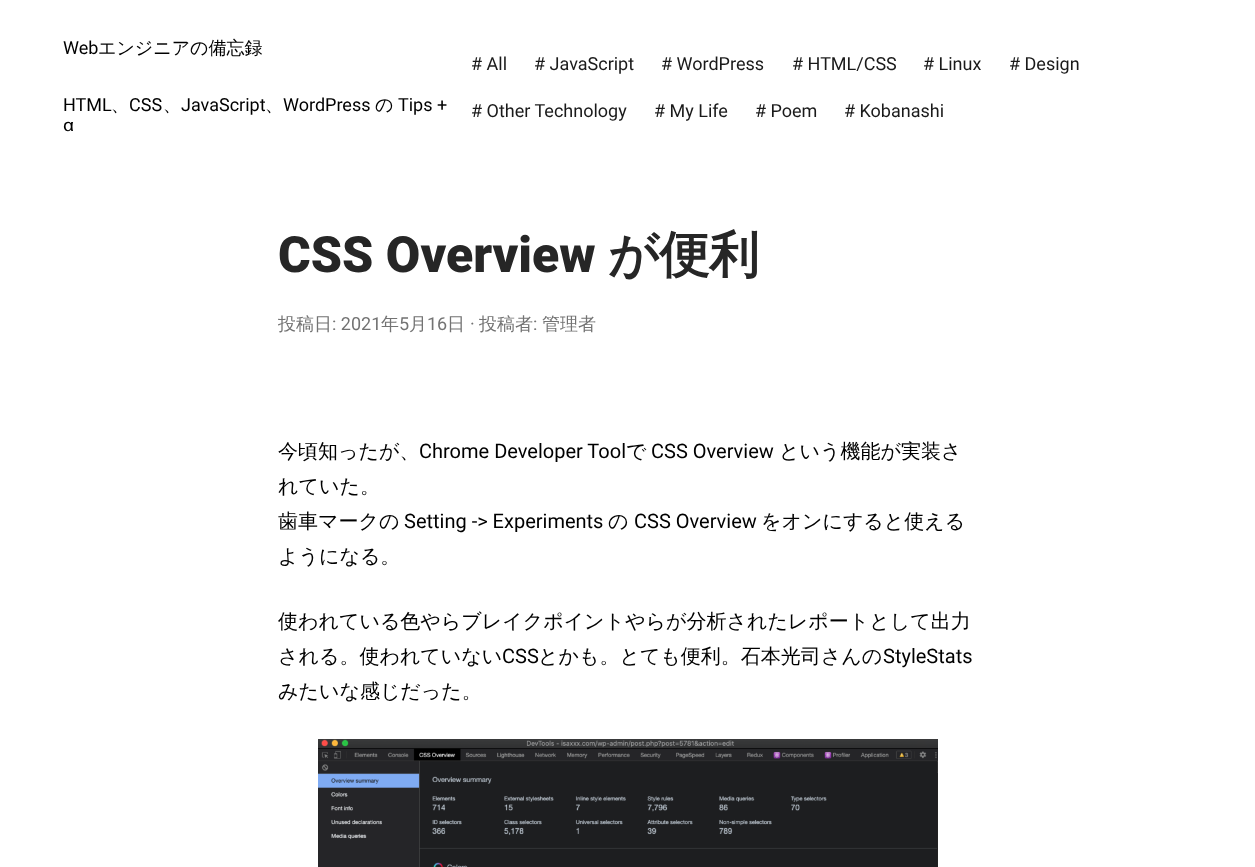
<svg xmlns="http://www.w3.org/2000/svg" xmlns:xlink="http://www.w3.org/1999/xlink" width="1255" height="867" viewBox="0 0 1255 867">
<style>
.cls-1{font:18px Roboto;fill:#000000}
.cls-2{font:500 18px WenQuanYi Zen Hei;fill:#000000}
.cls-3{font:18px Roboto;fill:#1a1a1a}
.cls-4{font:900 50px Roboto;fill:#262626}
.cls-5{font:bold 50px WenQuanYi Zen Hei;fill:#262626}
.cls-6{font:500 18px WenQuanYi Zen Hei;fill:#737373}
.cls-7{font:18px Roboto;fill:#737373}
.cls-8{font:500 20px WenQuanYi Zen Hei;fill:#000000}
.cls-9{font:20px Roboto;fill:#000000}
</style>
<rect width="100%" height="100%" fill="#ffffff"/>
<image xlink:href="image0.png" x="318" y="739" width="620" height="128"/>
<text class="cls-1" x="63" y="54">Web</text>
<text class="cls-2" x="98" y="54">エンジニアの備忘録</text>
<text class="cls-1" x="63" y="111">HTML</text>
<text class="cls-2" x="111" y="111">、</text>
<text class="cls-1" x="129" y="111">CSS</text>
<text class="cls-2" x="163" y="111">、</text>
<text class="cls-1" x="181" y="111">JavaScript</text>
<text class="cls-2" x="265" y="111">、</text>
<text class="cls-1" x="283" y="111">WordPress</text>
<text class="cls-2" x="375" y="111">の</text>
<text class="cls-1" x="398" y="111">Tips +</text>
<text class="cls-2" x="63" y="131">α</text>
<text class="cls-3" x="471" y="70"># All</text>
<text class="cls-3" x="534" y="70"># JavaScript</text>
<text class="cls-3" x="661" y="70"># WordPress</text>
<text class="cls-3" x="792" y="70"># HTML/CSS</text>
<text class="cls-3" x="923" y="70"># Linux</text>
<text class="cls-3" x="1009" y="70"># Design</text>
<text class="cls-3" x="471" y="117"># Other Technology</text>
<text class="cls-3" x="654" y="117"># My Life</text>
<text class="cls-3" x="755" y="117"># Poem</text>
<text class="cls-3" x="844" y="117"># Kobanashi</text>
<text class="cls-4" x="278" y="272">CSS Overview</text>
<text class="cls-5" x="608" y="272">が便利</text>
<text class="cls-6" x="278" y="330">投稿日</text>
<text class="cls-7" x="332" y="330">: 2021</text>
<text class="cls-6" x="381" y="330">年</text>
<text class="cls-7" x="399" y="330">5</text>
<text class="cls-6" x="409" y="330">月</text>
<text class="cls-7" x="427" y="330">16</text>
<text class="cls-6" x="447" y="330">日</text>
<text class="cls-7" x="470" y="330">·</text>
<text class="cls-6" x="479" y="330">投稿者</text>
<text class="cls-7" x="533" y="330">:</text>
<text class="cls-6" x="542" y="330">管理者</text>
<text class="cls-8" x="278" y="458">今頃知ったが、</text>
<text class="cls-9" x="419" y="458">Chrome Developer Tool</text>
<text class="cls-8" x="626" y="458">で</text>
<text class="cls-9" x="651" y="458">CSS Overview</text>
<text class="cls-8" x="779" y="458">という機能が実装さ</text>
<text class="cls-8"><tspan x="278" y="493">れていた。</tspan><tspan x="278" y="528">歯車マークの</tspan></text>
<text class="cls-9" x="404" y="528">Setting -&gt; Experiments</text>
<text class="cls-8" x="608" y="528">の</text>
<text class="cls-9" x="634" y="528">CSS Overview</text>
<text class="cls-8" x="761" y="528">をオンにすると使える</text>
<text class="cls-8" x="278" y="563">ようになる。</text>
<text class="cls-8"><tspan x="278" y="628">使われている色やらブレイクポイントやらが分析されたレポートとして出力</tspan><tspan x="278" y="663">される。使われていない</tspan></text>
<text class="cls-9" x="502" y="663">CSS</text>
<text class="cls-8" x="538" y="663">とかも。とても便利。石本光司さんの</text>
<text class="cls-9" x="883" y="663">StyleStats</text>
<text class="cls-8" x="278" y="698">みたいな感じだった。</text>
</svg>
